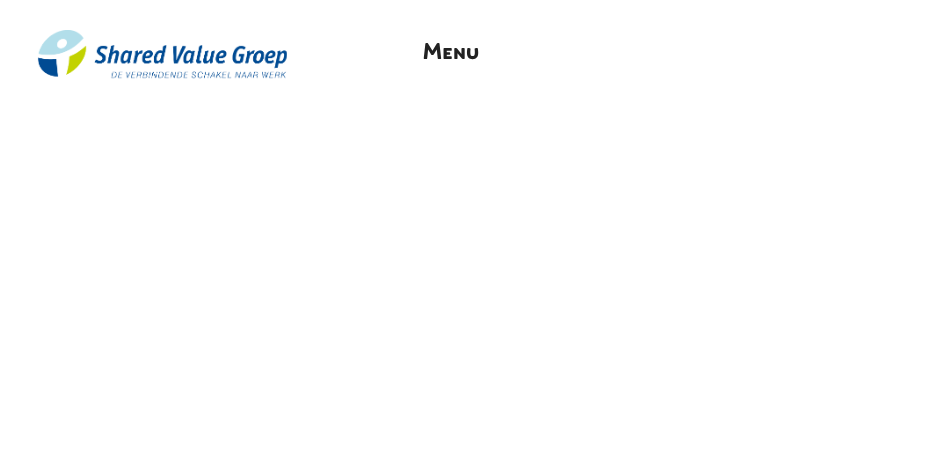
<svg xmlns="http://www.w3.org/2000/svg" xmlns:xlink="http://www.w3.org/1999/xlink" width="929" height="475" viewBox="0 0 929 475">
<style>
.cls-1{font:bold 22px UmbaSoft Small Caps;fill:#222222}
</style>
<rect width="100%" height="100%" fill="#ffffff"/>
<image xlink:href="image0.png" x="37" y="30" width="250" height="49"/>
<text class="cls-1" x="423" y="59">Menu</text>
</svg>
